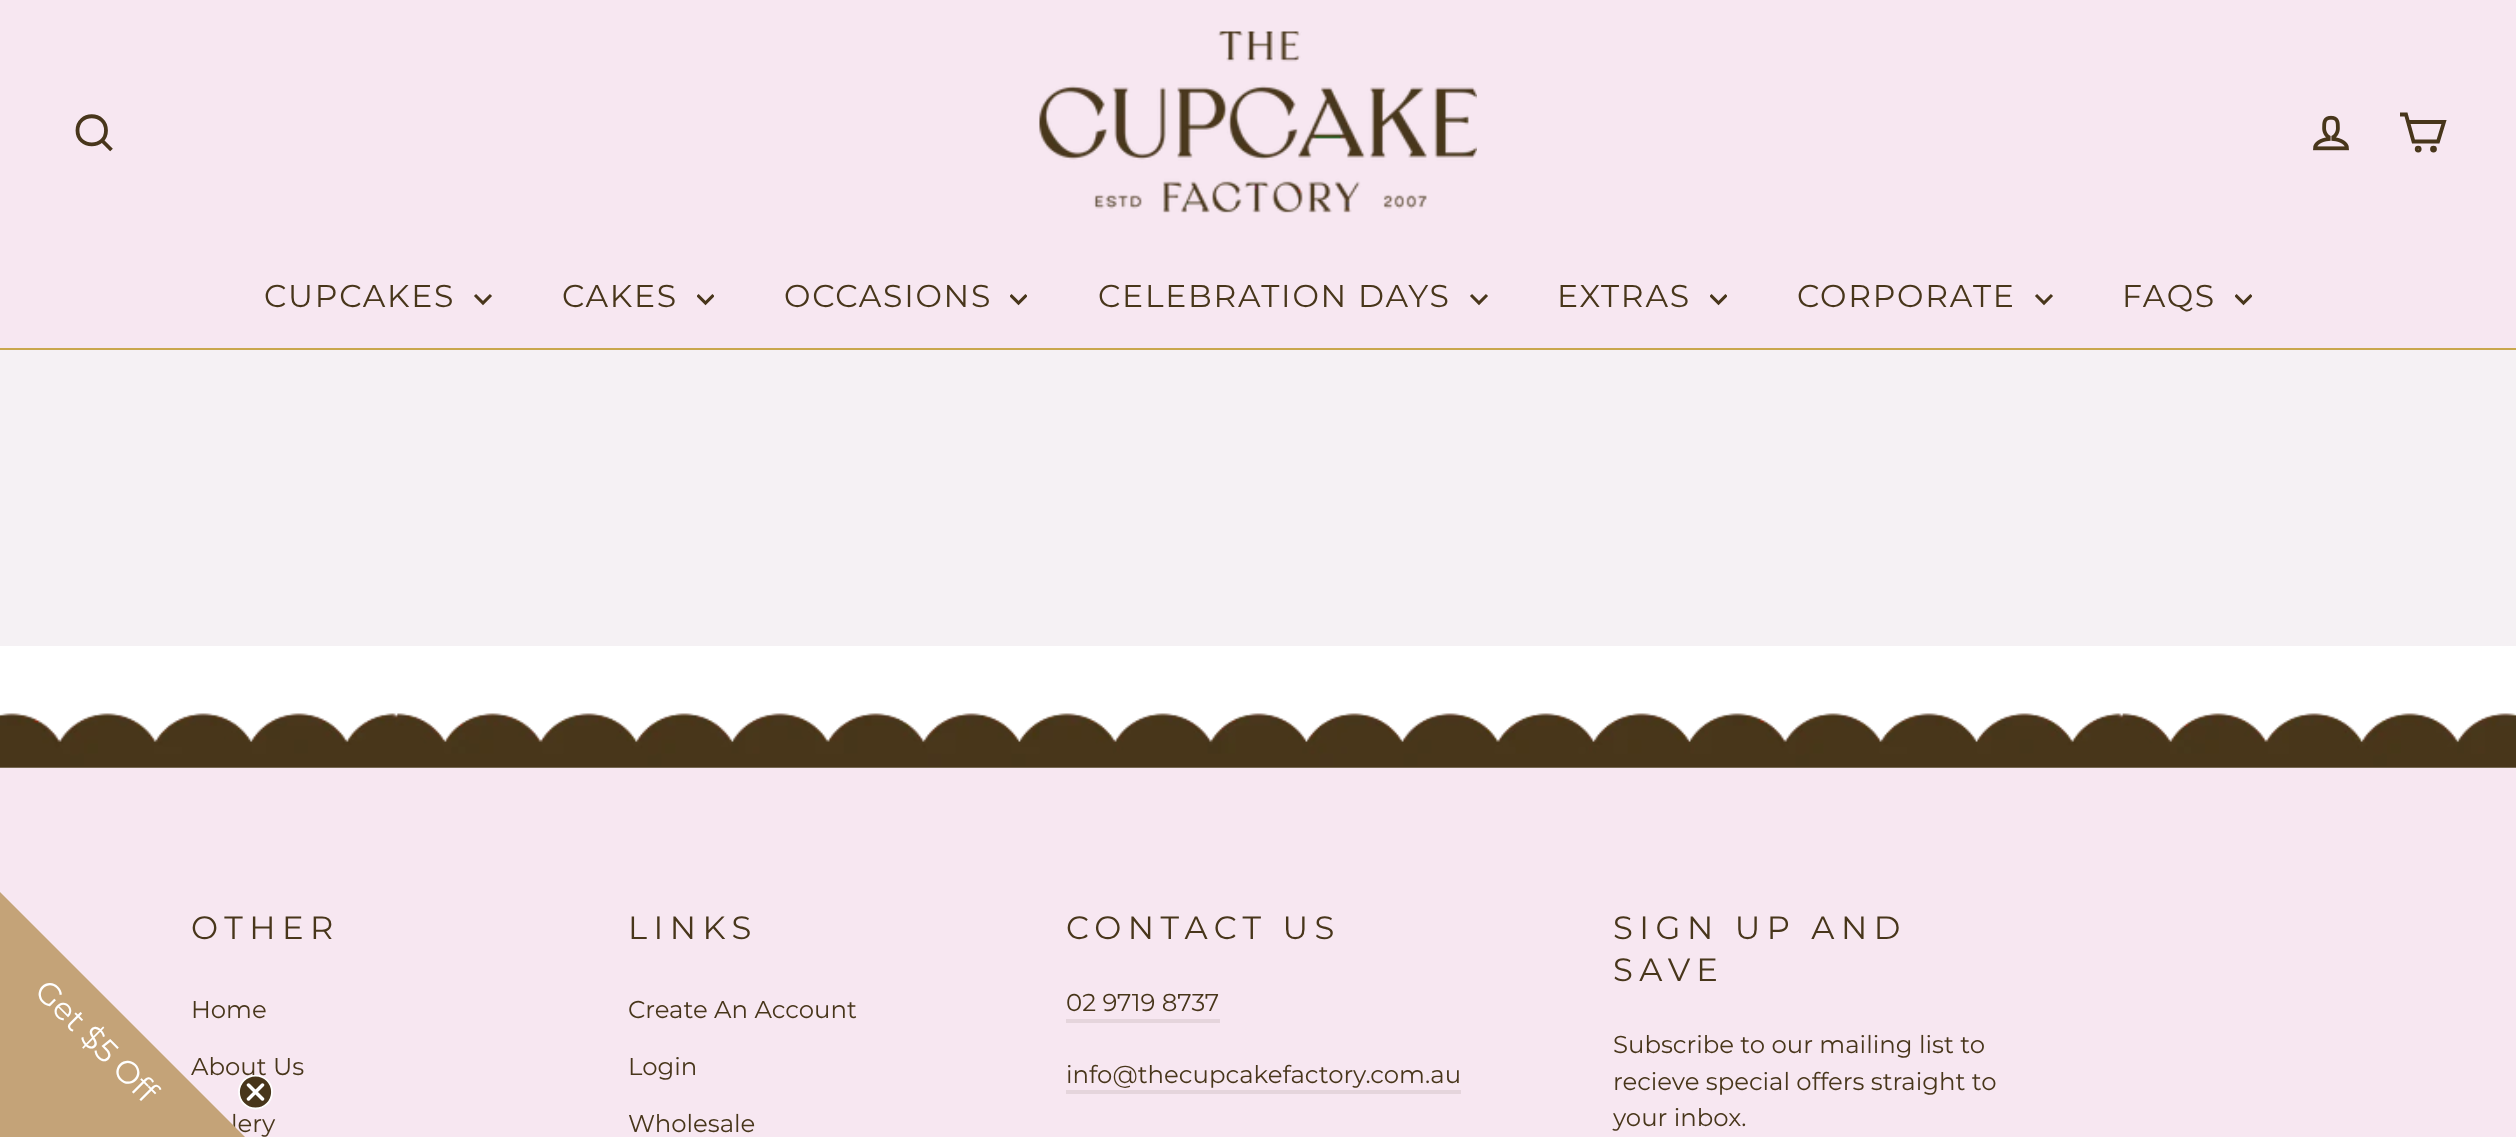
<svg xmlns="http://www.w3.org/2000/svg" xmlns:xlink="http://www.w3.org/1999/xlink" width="2516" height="1137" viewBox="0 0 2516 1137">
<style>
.cls-1{font:100 31.5px Montserrat;letter-spacing:1.75px;fill:#48361b}
.cls-2{font:100 32.25px Montserrat;letter-spacing:6.5px;fill:#48361b}
.cls-3{font:100 24.4px Montserrat;fill:#48361b}
.cls-4{font:100 31.5px Montserrat;fill:#ffffff}
</style>
<defs>
<clipPath id="clip1"><rect x="697" y="291" width="17" height="17"/></clipPath>
<clipPath id="clip2"><rect x="1010" y="291" width="17" height="17"/></clipPath>
<clipPath id="clip3"><rect x="1710" y="291" width="17" height="17"/></clipPath>
<clipPath id="clip4"><rect x="2235" y="291" width="17" height="17"/></clipPath>
<clipPath id="clip5"><rect x="238" y="1075" width="35" height="35"/></clipPath>
</defs>
<rect width="100%" height="100%" fill="#ffffff"/>
<rect fill="#f7e7f1" x="0" y="0" width="2516" height="348"/>
<rect fill="#c9a74d" x="0" y="348" width="2516" height="2"/>
<path fill="none" stroke="#48361b" stroke-width="3.8" d="M106 130.5C106 149 77.5 149 77.5 130.5C77.5 111.5 106 111.5 106 130.5ZM111.5 150L102 140.5"/>
<image xlink:href="image0.png" x="1039" y="31" width="438" height="182"/>
<image xlink:href="image1.png" x="2313" y="115" width="36" height="36"/>
<path fill="none" stroke="#48361b" stroke-width="3.8" d="M2408 122H2444L2438 141.5H2413.5L2406 114.5H2400"/>
<circle fill="none" stroke="#48361b" stroke-width="3.8" cx="2418.2" cy="149.1" r="1.5"/>
<circle fill="#48361b" stroke="#48361b" stroke-width="3.8" cx="2433.5" cy="149.1" r="1.5"/>
<path fill="none" stroke="#48361b" stroke-width="3.1" d="M475 295L483 303L491 295"/>
<g clip-path="url(#clip1)">
<path fill="none" stroke="#48361b" stroke-width="3.1" d="M697.5 295L705.5 303L713.5 295"/>
</g>
<g clip-path="url(#clip2)">
<path fill="none" stroke="#48361b" stroke-width="3.1" d="M1010.5 295L1018.5 303L1026.5 295"/>
</g>
<path fill="none" stroke="#48361b" stroke-width="3.1" d="M1471 295L1479 303L1487 295"/>
<g clip-path="url(#clip3)">
<path fill="none" stroke="#48361b" stroke-width="3.1" d="M1710.5 295L1718.5 303L1726.5 295"/>
</g>
<path fill="none" stroke="#48361b" stroke-width="3.1" d="M2036 295L2044 303L2052 295"/>
<g clip-path="url(#clip4)">
<path fill="none" stroke="#48361b" stroke-width="3.1" d="M2235.5 295L2243.5 303L2251.5 295"/>
</g>
<rect fill="#f5f1f4" x="0" y="350" width="2516" height="296"/>
<image xlink:href="image2.png" x="0" y="713" width="2516" height="55"/>
<rect fill="#f7e7f1" x="0" y="768" width="2516" height="369"/>
<rect fill="#e5d5dc" x="1066" y="1019" width="154" height="4"/>
<rect fill="#e5d5dc" x="1066" y="1090" width="395" height="4"/>
<text class="cls-1" x="264" y="307">CUPCAKES</text>
<text class="cls-1" x="562" y="307">CAKES</text>
<text class="cls-1" x="784" y="307">OCCASIONS</text>
<text class="cls-1" x="1098" y="307">CELEBRATION DAYS</text>
<text class="cls-1" x="1557" y="307">EXTRAS</text>
<text class="cls-1" x="1797" y="307">CORPORATE</text>
<text class="cls-1" x="2122" y="307">FAQS</text>
<text class="cls-2" x="191" y="939">OTHER</text>
<text class="cls-3" x="191" y="1018">Home</text>
<text class="cls-3" x="191" y="1075">About Us</text>
<text class="cls-3" x="231" y="1132">lery</text>
<path fill="#c4a378" d="M0 892L245 1137L0 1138Z"/>
<circle fill="#48361b" cx="255.5" cy="1092" r="16.5"/>
<g clip-path="url(#clip5)">
<circle fill="none" stroke="#ffffff" stroke-width="1.8" cx="255.5" cy="1092" r="16.5"/>
</g>
<path fill="none" stroke="#ffffff" stroke-width="3.5" stroke-linecap="round" stroke-linejoin="round" d="M248.5 1085L262.5 1099M248.5 1099L262.5 1085Z"/>
<text class="cls-4" x="33" y="993" transform="rotate(45 33 993)">Get $5 Off</text>
<text class="cls-2" x="628" y="939">LINKS</text>
<text class="cls-3" x="628" y="1018">Create An Account</text>
<text class="cls-3" x="628" y="1075">Login</text>
<text class="cls-3" x="628" y="1132">Wholesale</text>
<text class="cls-2" x="1066" y="939">CONTACT US</text>
<text class="cls-3" x="1066" y="1011">02 9719 8737</text>
<text class="cls-3" x="1066" y="1083">info@thecupcakefactory.com.au</text>
<text class="cls-2"><tspan x="1613" y="939">SIGN UP AND</tspan><tspan x="1613" y="981">SAVE</tspan></text>
<text class="cls-3"><tspan x="1613" y="1053">Subscribe to our mailing list to</tspan><tspan x="1613" y="1090">recieve special offers straight to</tspan><tspan x="1613" y="1126">your inbox.</tspan></text>
</svg>
